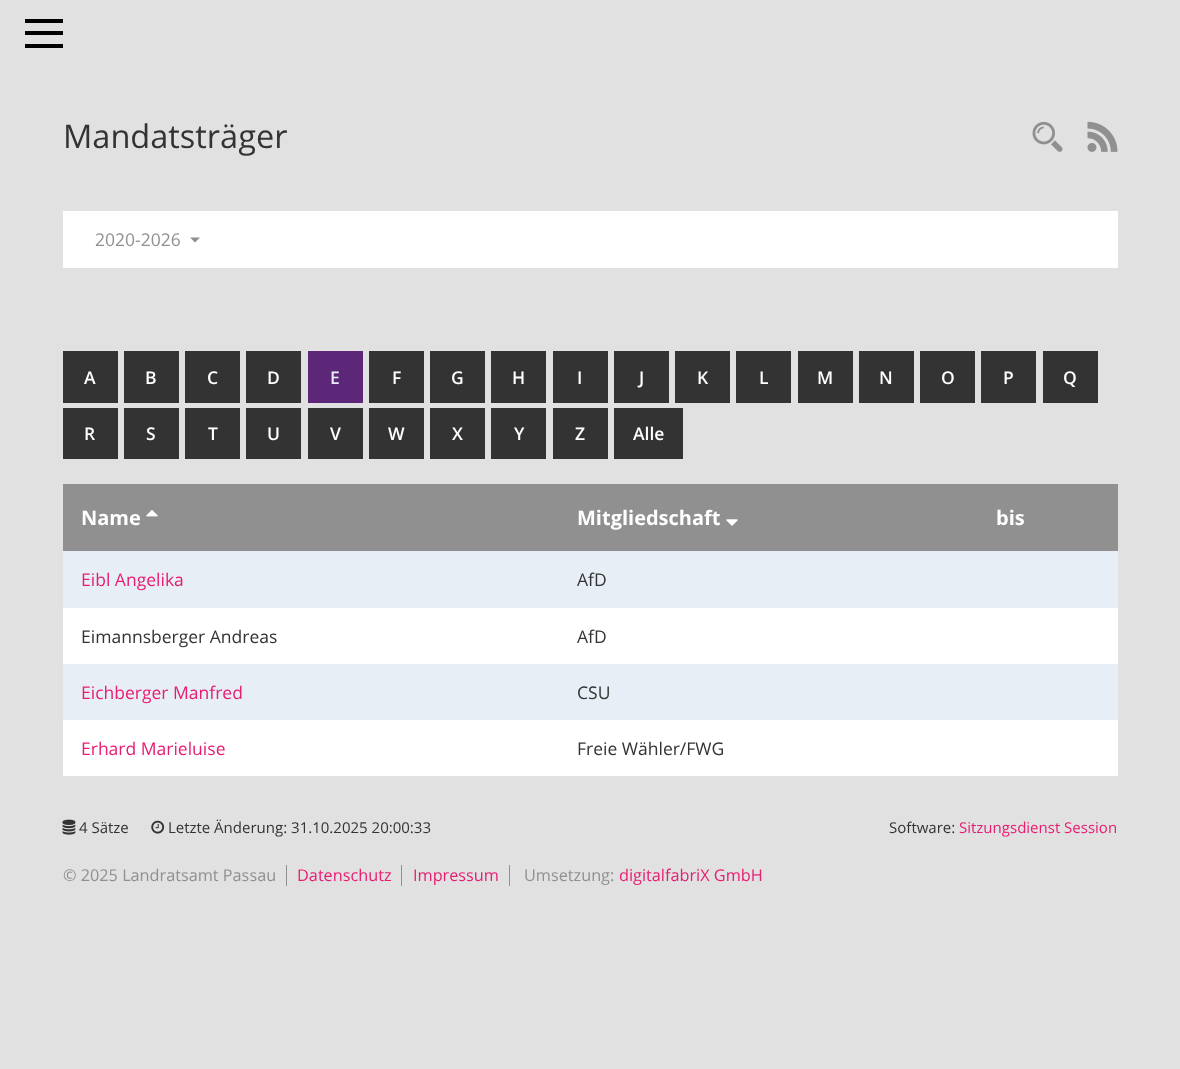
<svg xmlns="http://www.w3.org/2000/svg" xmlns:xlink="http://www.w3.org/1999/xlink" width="1180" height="1069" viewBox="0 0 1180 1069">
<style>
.cls-1{font:32.5px Open Sans;fill:#333333}
.cls-2{font:17.5px Open Sans;fill:#909090}
.cls-3{font:600 17.5px Open Sans;fill:#ffffff}
.cls-4{font:600 17.5px Open Sans;fill:#e7eef6}
.cls-5{font:bold 20px Open Sans;fill:#ffffff}
.cls-6{font:17.5px Open Sans;fill:#e71d72}
.cls-7{font:17.5px Open Sans;fill:#333333}
.cls-8{font:15px Open Sans;fill:#333333}
.cls-9{font:15px Open Sans;fill:#e71d72}
.cls-10{font:16.25px Open Sans;fill:#909090}
.cls-11{font:16.25px Open Sans;fill:#e71d72}
</style>
<rect width="100%" height="100%" fill="#e1e1e1"/>
<rect fill="#000000" x="25" y="19" width="38" height="4"/>
<rect fill="#000000" x="25" y="31" width="38" height="4"/>
<rect fill="#000000" x="25" y="44" width="38" height="4"/>
<image xlink:href="image0.png" x="1032" y="121" width="31" height="31"/>
<image xlink:href="image1.png" x="1087" y="121" width="31" height="31"/>
<rect fill="#ffffff" x="63" y="211" width="1055" height="57"/>
<path fill="#909090" d="M190 237.5H200L195 242.5Z"/>
<rect fill="#dee2e6" x="118" y="458" width="1000" height="1"/>
<rect fill="#333333" x="63" y="351" width="55" height="52"/>
<rect fill="#333333" x="124" y="351" width="55" height="52"/>
<rect fill="#333333" x="185" y="351" width="55" height="52"/>
<rect fill="#333333" x="246" y="351" width="55" height="52"/>
<rect fill="#5c2778" x="308" y="351" width="55" height="52"/>
<rect fill="#333333" x="369" y="351" width="55" height="52"/>
<rect fill="#333333" x="430" y="351" width="55" height="52"/>
<rect fill="#333333" x="491" y="351" width="55" height="52"/>
<rect fill="#333333" x="553" y="351" width="55" height="52"/>
<rect fill="#333333" x="614" y="351" width="55" height="52"/>
<rect fill="#333333" x="675" y="351" width="55" height="52"/>
<rect fill="#333333" x="736" y="351" width="55" height="52"/>
<rect fill="#333333" x="798" y="351" width="55" height="52"/>
<rect fill="#333333" x="859" y="351" width="55" height="52"/>
<rect fill="#333333" x="920" y="351" width="55" height="52"/>
<rect fill="#333333" x="981" y="351" width="55" height="52"/>
<rect fill="#333333" x="1043" y="351" width="55" height="52"/>
<rect fill="#333333" x="63" y="408" width="55" height="51"/>
<rect fill="#333333" x="124" y="408" width="55" height="51"/>
<rect fill="#333333" x="185" y="408" width="55" height="51"/>
<rect fill="#333333" x="246" y="408" width="55" height="51"/>
<rect fill="#333333" x="308" y="408" width="55" height="51"/>
<rect fill="#333333" x="369" y="408" width="55" height="51"/>
<rect fill="#333333" x="430" y="408" width="55" height="51"/>
<rect fill="#333333" x="491" y="408" width="55" height="51"/>
<rect fill="#333333" x="553" y="408" width="55" height="51"/>
<rect fill="#333333" x="614" y="408" width="69" height="51"/>
<rect fill="#ffffff" x="63" y="608" width="1055" height="168"/>
<rect fill="#909090" x="63" y="484" width="1055" height="67"/>
<image xlink:href="image2.png" x="146" y="510" width="12" height="7"/>
<image xlink:href="image3.png" x="726" y="519" width="12" height="7"/>
<rect fill="#e7eef6" x="63" y="551" width="1055" height="57"/>
<rect fill="#e7eef6" x="63" y="664" width="1055" height="56"/>
<image xlink:href="image4.png" x="62" y="819" width="14" height="16"/>
<image xlink:href="image5.png" x="151" y="820" width="14" height="14"/>
<rect fill="#909090" x="286" y="865" width="1" height="21"/>
<rect fill="#909090" x="401" y="865" width="1" height="21"/>
<rect fill="#909090" x="509" y="865" width="1" height="21"/>
<text class="cls-1" x="63" y="148">Mandatsträger</text>
<text class="cls-2" x="95" y="246">2020-2026</text>
<text class="cls-3" x="84" y="384">A</text>
<text class="cls-3" x="145" y="384">B</text>
<text class="cls-3" x="207" y="384">C</text>
<text class="cls-3" x="267" y="384">D</text>
<text class="cls-4" x="330" y="384">E</text>
<text class="cls-3" x="392" y="384">F</text>
<text class="cls-3" x="451" y="384">G</text>
<text class="cls-3" x="512" y="384">H</text>
<text class="cls-3" x="577" y="384">I</text>
<text class="cls-3" x="639" y="384">J</text>
<text class="cls-3" x="697" y="384">K</text>
<text class="cls-3" x="759" y="384">L</text>
<text class="cls-3" x="817" y="384">M</text>
<text class="cls-3" x="879" y="384">N</text>
<text class="cls-3" x="941" y="384">O</text>
<text class="cls-3" x="1003" y="384">P</text>
<text class="cls-3" x="1063" y="384">Q</text>
<text class="cls-3" x="84" y="440">R</text>
<text class="cls-3" x="146" y="440">S</text>
<text class="cls-3" x="208" y="440">T</text>
<text class="cls-3" x="267" y="440">U</text>
<text class="cls-3" x="330" y="440">V</text>
<text class="cls-3" x="388" y="440">W</text>
<text class="cls-3" x="452" y="440">X</text>
<text class="cls-3" x="514" y="440">Y</text>
<text class="cls-3" x="575" y="440">Z</text>
<text class="cls-3" x="633" y="440">Alle</text>
<text class="cls-5" x="81" y="525">Name</text>
<text class="cls-5" x="577" y="525">Mitgliedschaft</text>
<text class="cls-5" x="996" y="525">bis</text>
<text class="cls-6" x="81" y="586">Eibl Angelika</text>
<text class="cls-7" x="577" y="586">AfD</text>
<text class="cls-7" x="81" y="643">Eimannsberger Andreas</text>
<text class="cls-7" x="577" y="643">AfD</text>
<text class="cls-6" x="81" y="699">Eichberger Manfred</text>
<text class="cls-7" x="577" y="699">CSU</text>
<text class="cls-6" x="81" y="755">Erhard Marieluise</text>
<text class="cls-7" x="577" y="755">Freie Wähler/FWG</text>
<text class="cls-8" x="79" y="833">4 Sätze</text>
<text class="cls-8" x="168" y="833">Letzte Änderung: 31.10.2025 20:00:33</text>
<text class="cls-8" x="889" y="833">Software:</text>
<text class="cls-9" x="959" y="833">Sitzungsdienst Session</text>
<text class="cls-10" x="63" y="881">© 2025 Landratsamt Passau</text>
<text class="cls-11" x="297" y="881">Datenschutz</text>
<text class="cls-11" x="413" y="881">Impressum</text>
<text class="cls-10" x="524" y="881">Umsetzung:</text>
<text class="cls-11" x="619" y="881">digitalfabriX GmbH</text>
</svg>
